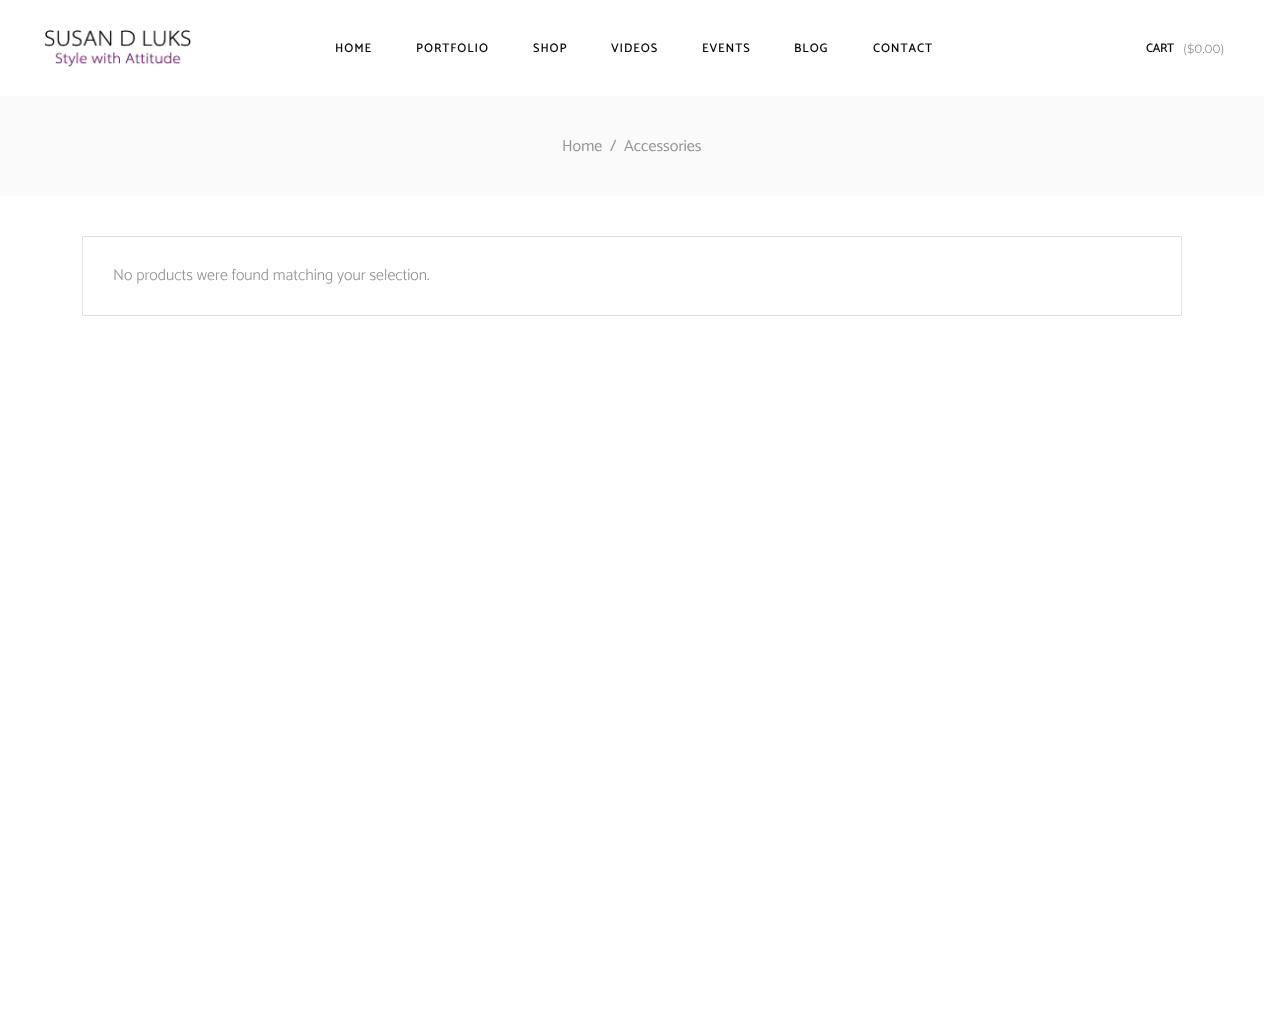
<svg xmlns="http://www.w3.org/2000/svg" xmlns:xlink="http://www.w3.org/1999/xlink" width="1264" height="1025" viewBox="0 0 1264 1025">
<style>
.cls-1{font:bold 12px Catamaran;letter-spacing:1.25px;fill:#080808}
.cls-2{font:bold 12px Catamaran;fill:#080808}
.cls-3{font:12px Montserrat;fill:#929292}
.cls-4{font:16px Catamaran;fill:#929292}
.cls-5{font:300 16px Catamaran;fill:#929292}
</style>
<rect width="100%" height="100%" fill="#ffffff"/>
<image xlink:href="image0.png" x="44" y="30" width="148" height="38"/>
<rect fill="#fafafa" x="0" y="96" width="1264" height="100"/>
<rect fill="none" stroke="#e1e1e1" x="82.5" y="236.5" width="1099" height="79"/>
<text class="cls-1" x="335" y="52">HOME</text>
<text class="cls-1" x="416" y="52">PORTFOLIO</text>
<text class="cls-1" x="533" y="52">SHOP</text>
<text class="cls-1" x="611" y="52">VIDEOS</text>
<text class="cls-1" x="702" y="52">EVENTS</text>
<text class="cls-1" x="794" y="52">BLOG</text>
<text class="cls-1" x="873" y="52">CONTACT</text>
<text class="cls-2" x="1146" y="52">CART</text>
<text class="cls-3" x="1183" y="53">($0.00)</text>
<text class="cls-4" x="562" y="151">Home</text>
<text class="cls-4" x="610" y="151">/</text>
<text class="cls-4" x="624" y="151">Accessories</text>
<text class="cls-5" x="113" y="280">No products were found matching your selection.</text>
</svg>
